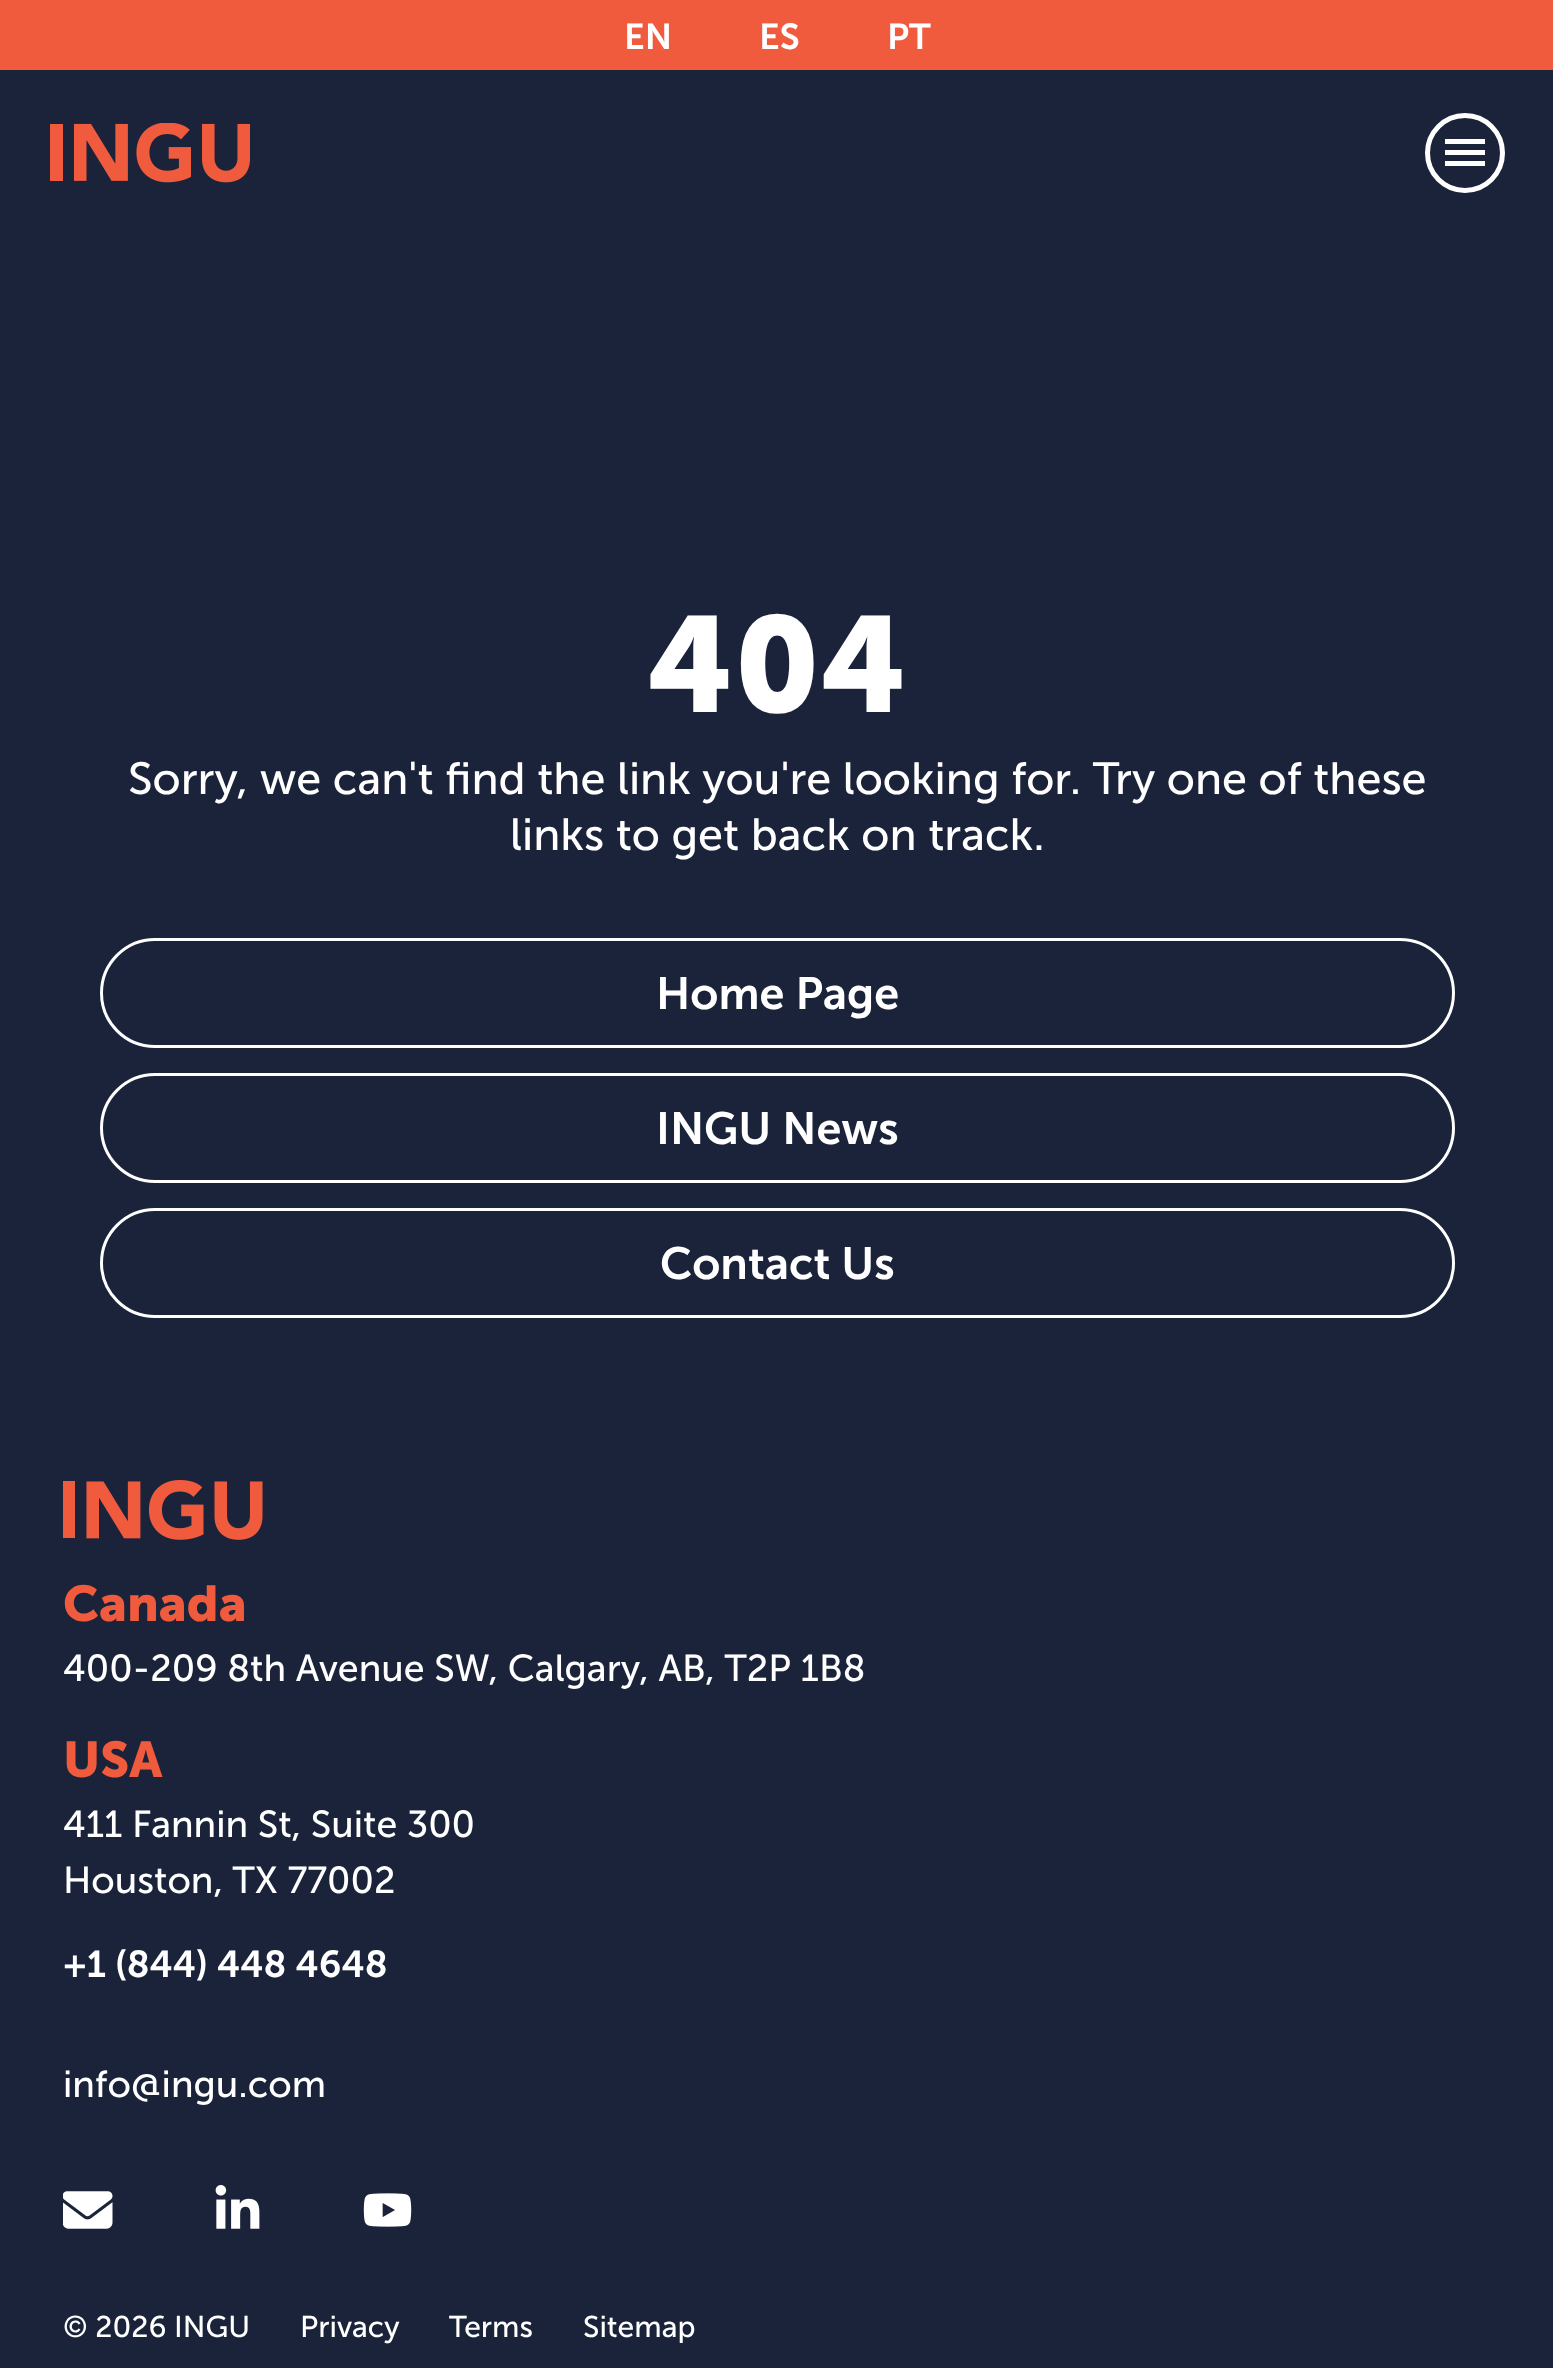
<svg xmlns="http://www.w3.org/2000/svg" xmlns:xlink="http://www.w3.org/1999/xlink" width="1553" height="2368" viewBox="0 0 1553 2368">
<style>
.cls-1{font:600 36px Museo Sans;fill:#ffffff}
.cls-2{font:bold 135px Museo Sans;fill:#ffffff}
.cls-3{font:45px Museo Sans;fill:#ffffff}
.cls-4{font:600 45px Museo Sans;fill:#ffffff}
.cls-5{font:bold 50px Museo Sans;fill:#f05b3d}
.cls-6{font:37.5px Museo Sans;fill:#ffffff}
.cls-7{font:600 37.5px Museo Sans;fill:#ffffff}
.cls-8{font:30px Museo Sans;fill:#ffffff}
</style>
<rect width="100%" height="100%" fill="#f05b3d"/>
<rect fill="#1b233a" x="0" y="70" width="1553" height="2298"/>
<image xlink:href="image0.png" x="50" y="123" width="200" height="60"/>
<circle fill="none" stroke="#ffffff" stroke-width="5" cx="1465" cy="153" r="37.5"/>
<path fill="#ffffff" d="M1445 166V161H1485V166ZM1445 155V150H1485V155ZM1445 144V139H1485V144Z"/>
<rect fill="none" stroke="#ffffff" stroke-width="3" x="101.5" y="939.5" width="1352" height="107" rx="53.5"/>
<rect fill="none" stroke="#ffffff" stroke-width="3" x="101.5" y="1074.5" width="1352" height="107" rx="53.5"/>
<rect fill="none" stroke="#ffffff" stroke-width="3" x="101.5" y="1209.5" width="1352" height="107" rx="53.5"/>
<image xlink:href="image1.png" x="63" y="1480" width="200" height="60"/>
<image xlink:href="image2.png" x="63" y="2191" width="50" height="38"/>
<image xlink:href="image3.png" x="215" y="2185" width="45" height="44"/>
<image xlink:href="image4.png" x="363" y="2193" width="49" height="34"/>
<text class="cls-1" x="624" y="49">EN</text>
<text class="cls-1" x="759" y="49">ES</text>
<text class="cls-1" x="887" y="49">PT</text>
<text class="cls-2" x="647" y="712">404</text>
<text class="cls-3" x="128" y="794">Sorry, we can't find the link you're looking for. Try one of these</text>
<text class="cls-3" x="510" y="850">links to get back on track.</text>
<text class="cls-4" x="656" y="1009">Home Page</text>
<text class="cls-4" x="656" y="1144">INGU News</text>
<text class="cls-4" x="660" y="1279">Contact Us</text>
<text class="cls-5" x="63" y="1621">Canada</text>
<text class="cls-6" x="63" y="1681">400-209 8th Avenue SW, Calgary, AB, T2P 1B8</text>
<text class="cls-5" x="63" y="1777">USA</text>
<text class="cls-6"><tspan x="63" y="1837">411 Fannin St, Suite 300</tspan><tspan x="63" y="1893">Houston, TX 77002</tspan></text>
<text class="cls-7" x="63" y="1977">+1 (844) 448 4648</text>
<text class="cls-6" x="63" y="2097">info@ingu.com</text>
<text class="cls-8" x="63" y="2337">© 2026 INGU</text>
<text class="cls-8" x="300" y="2337">Privacy</text>
<text class="cls-8" x="449" y="2337">Terms</text>
<text class="cls-8" x="583" y="2337">Sitemap</text>
</svg>
